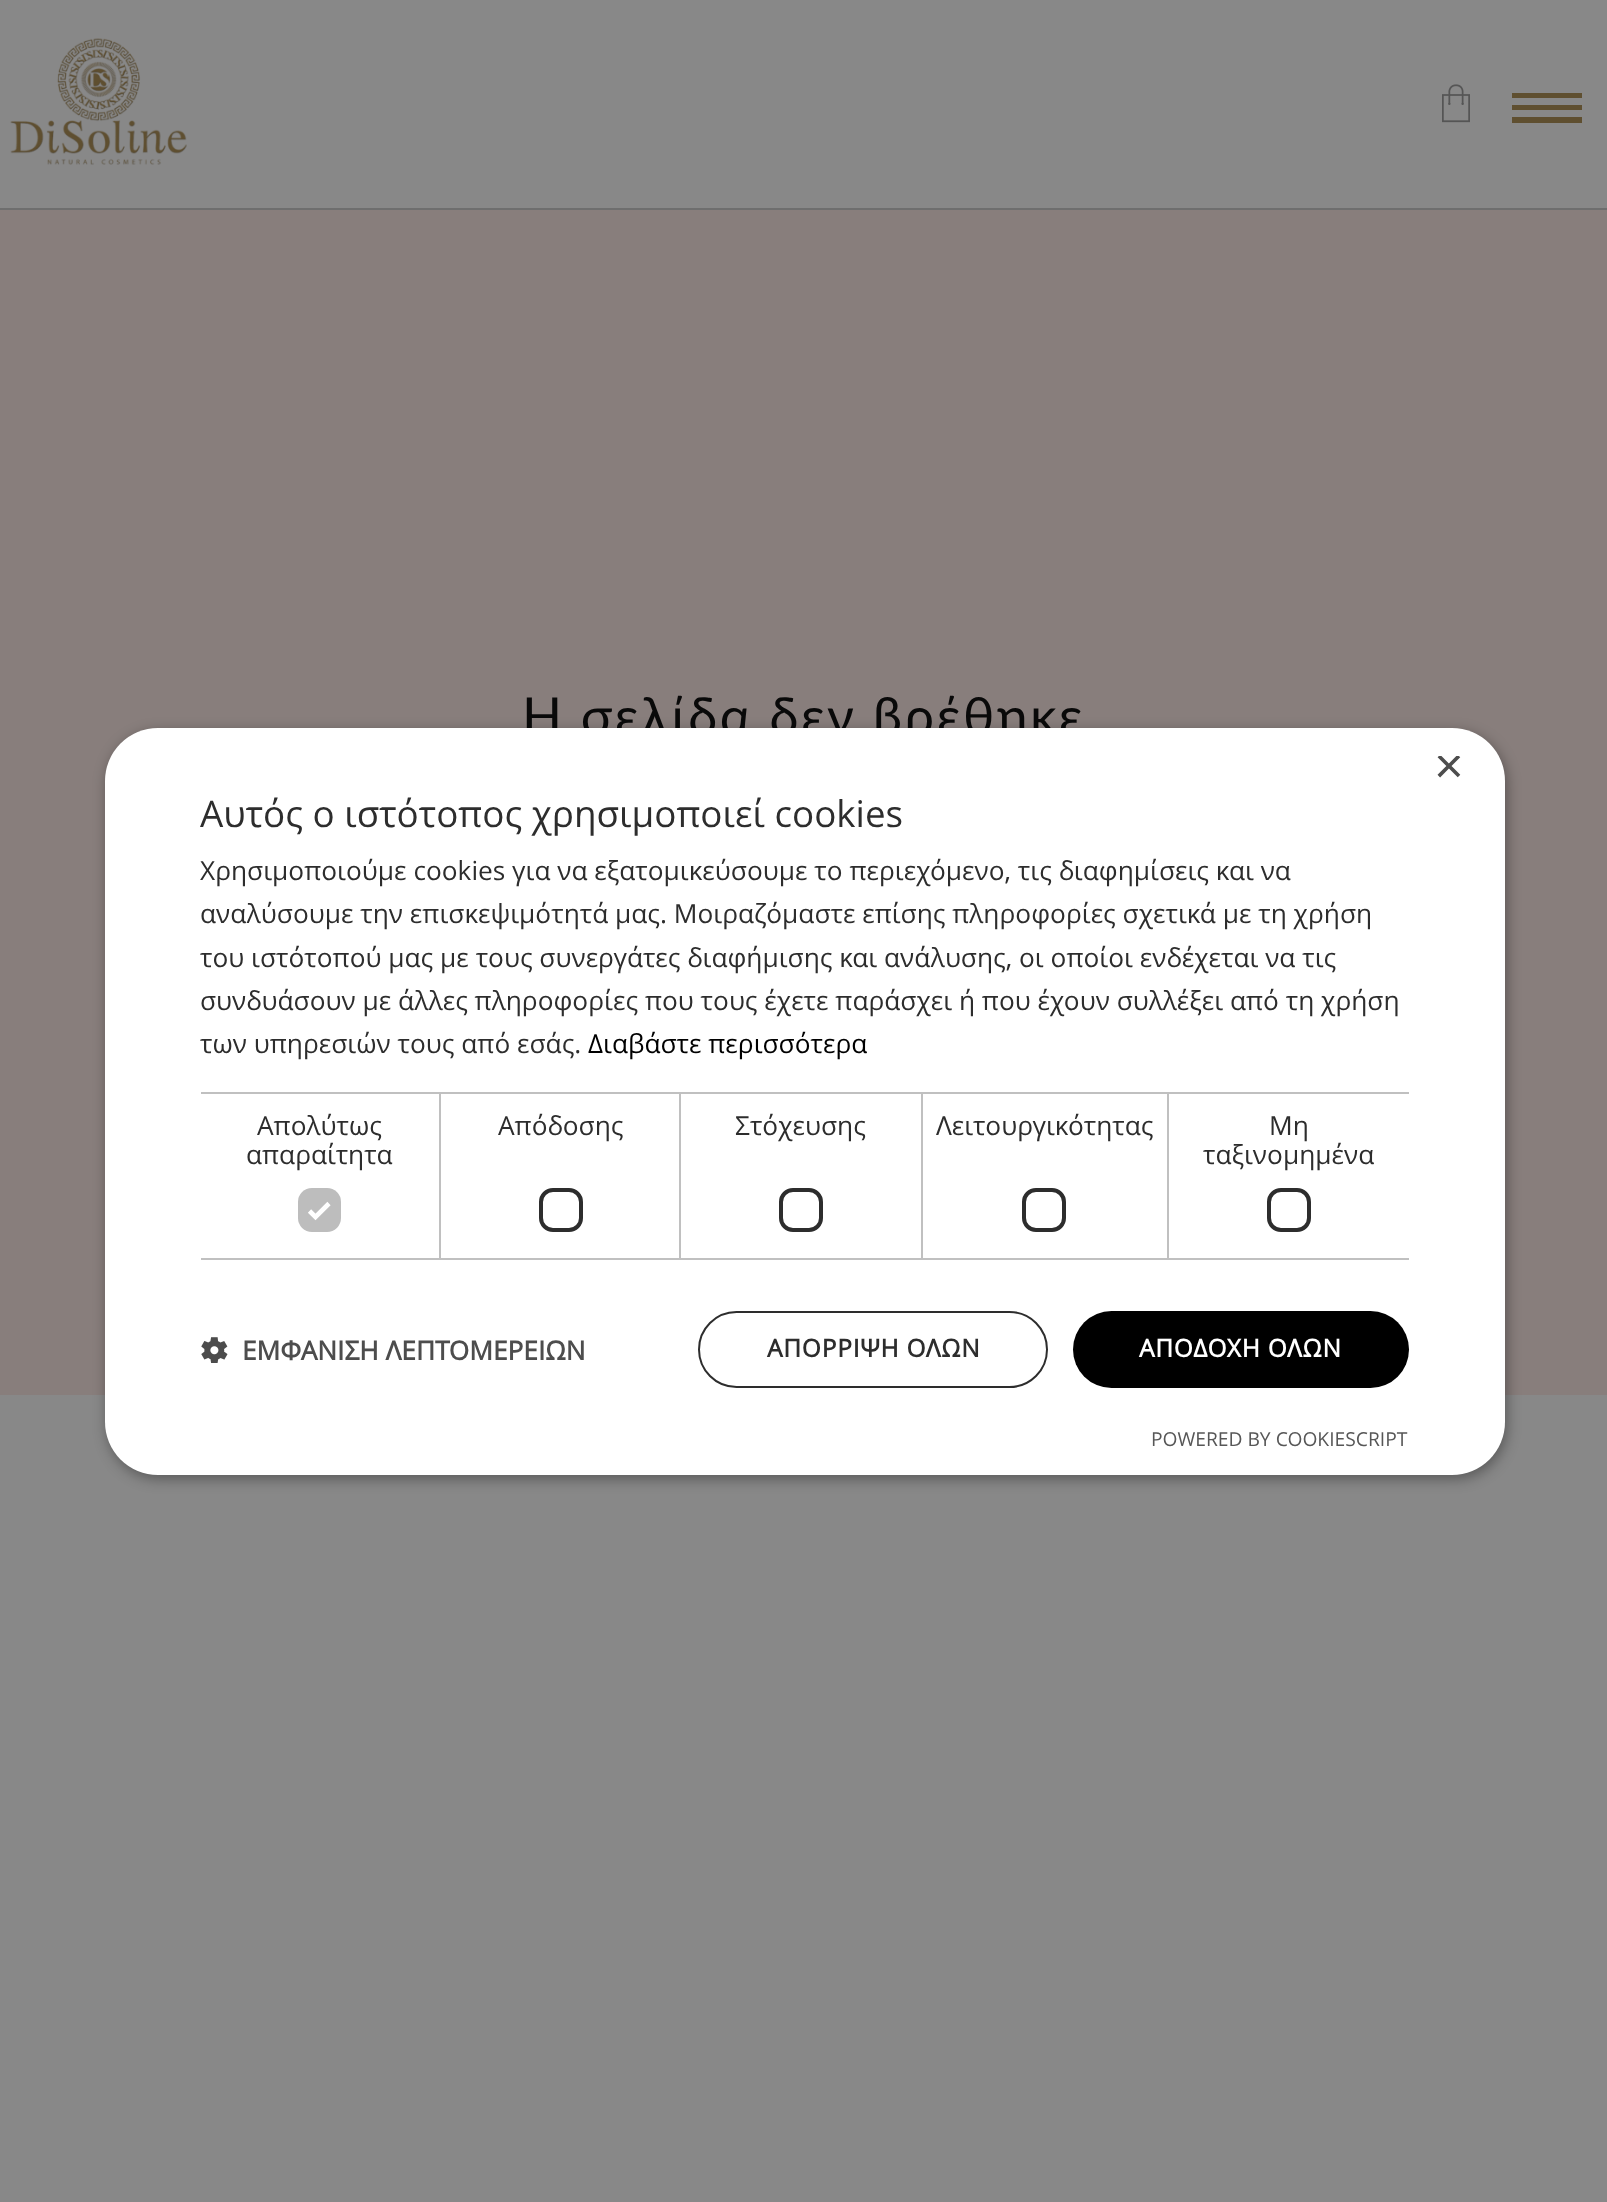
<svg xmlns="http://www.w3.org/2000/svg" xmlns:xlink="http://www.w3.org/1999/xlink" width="1607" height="2202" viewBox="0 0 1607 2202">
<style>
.cls-1{font:52.5px Lato;letter-spacing:2.6px;fill:#090909}
.cls-2{font:51px Liberation Sans;fill:#4d4d4d}
.cls-3{font:36.75px Open Sans;fill:#2d2d2d}
.cls-4{font:26.25px Open Sans;fill:#2d2d2d}
.cls-5{font:26.25px Open Sans;fill:#000000}
.cls-6{font:bold 26.25px Open Sans;fill:#4d4d4d}
.cls-7{font:bold 24.5px Open Sans;letter-spacing:0.75px;fill:#2d2d2d}
.cls-8{font:bold 24.5px Open Sans;letter-spacing:0.75px;fill:#ffffff}
.cls-9{font:19.25px Open Sans;fill:#575757}
</style>
<defs>
<clipPath id="clip1"><rect x="1435" y="756" width="26" height="26"/></clipPath>
</defs>
<rect width="100%" height="100%" fill="#888888"/>
<rect fill="#6e6e6e" x="0" y="208" width="1607" height="2"/>
<image xlink:href="image0.png" x="10" y="38" width="177" height="127"/>
<image xlink:href="image1.png" x="1442" y="84" width="28" height="39"/>
<rect fill="#5f4f30" x="1512" y="93" width="70" height="5"/>
<rect fill="#5f4f30" x="1512" y="105" width="70" height="5"/>
<rect fill="#5f4f30" x="1512" y="117" width="70" height="6"/>
<rect fill="#887e7c" x="0" y="210" width="1607" height="1185"/>
<rect fill="#000000" fill-opacity="0.35" filter="blur(7px)" x="107" y="732" width="1400" height="747" rx="53"/>
<text class="cls-1" x="522" y="735">Η σελίδα δεν βρέθηκε</text>
<rect fill="#ffffff" x="105" y="728" width="1400" height="747" rx="53"/>
<g clip-path="url(#clip1)">
<text class="cls-2" x="1434" y="783">×</text>
</g>
<text class="cls-3" x="200" y="827">Αυτός ο ιστότοπος χρησιμοποιεί cookies</text>
<text class="cls-4"><tspan x="200" y="880">Χρησιμοποιούμε cookies για να εξατομικεύσουμε το περιεχόμενο, τις διαφημίσεις και να</tspan><tspan x="200" y="923">αναλύσουμε την επισκεψιμότητά μας. Μοιραζόμαστε επίσης πληροφορίες σχετικά με τη χρήση</tspan><tspan x="200" y="967">του ιστότοπού μας με τους συνεργάτες διαφήμισης και ανάλυσης, οι οποίοι ενδέχεται να τις</tspan><tspan x="200" y="1010">συνδυάσουν με άλλες πληροφορίες που τους έχετε παράσχει ή που έχουν συλλέξει από τη χρήση</tspan><tspan x="200" y="1053">των υπηρεσιών τους από εσάς.</tspan></text>
<text class="cls-5" x="588" y="1053">Διαβάστε περισσότερα</text>
<rect fill="#c0c0c0" x="201" y="1092" width="721" height="2"/>
<rect fill="#c0c0c0" x="439" y="1092" width="2" height="168"/>
<rect fill="#c0c0c0" x="201" y="1258" width="240" height="2"/>
<text class="cls-4" x="257" y="1135">Απολύτως</text>
<text class="cls-4" x="246" y="1164">απαραίτητα</text>
<rect fill="#bdbdbd" x="298" y="1188" width="43" height="44" rx="14"/>
<path fill="none" stroke="#ffffff" stroke-width="4.6" d="M309.5 1211L315.5 1217L329 1203.5"/>
<rect fill="#c0c0c0" x="679" y="1092" width="2" height="168"/>
<rect fill="#c0c0c0" x="441" y="1258" width="240" height="2"/>
<text class="cls-4" x="498" y="1135">Απόδοσης</text>
<rect fill="none" stroke="#2d2d2d" stroke-width="4" x="541" y="1190" width="40" height="40" rx="12"/>
<rect fill="#c0c0c0" x="921" y="1092" width="2" height="168"/>
<rect fill="#c0c0c0" x="681" y="1258" width="241" height="2"/>
<text class="cls-4" x="735" y="1135">Στόχευσης</text>
<rect fill="none" stroke="#2d2d2d" stroke-width="4" x="781" y="1190" width="40" height="40" rx="12"/>
<rect fill="#c0c0c0" x="922" y="1092" width="487" height="2"/>
<rect fill="#c0c0c0" x="1167" y="1092" width="2" height="168"/>
<rect fill="#c0c0c0" x="922" y="1258" width="487" height="2"/>
<text class="cls-4" x="936" y="1135">Λειτουργικότητας</text>
<rect fill="none" stroke="#2d2d2d" stroke-width="4" x="1024" y="1190" width="40" height="40" rx="12"/>
<text class="cls-4" x="1269" y="1135">Μη</text>
<text class="cls-4" x="1203" y="1164">ταξινομημένα</text>
<rect fill="none" stroke="#2d2d2d" stroke-width="4" x="1269" y="1190" width="40" height="40" rx="12"/>
<image xlink:href="image2.png" x="201" y="1337" width="27" height="26"/>
<text class="cls-6" x="242" y="1360">ΕΜΦΑΝΙΣΗ ΛΕΠΤΟΜΕΡΕΙΩΝ</text>
<rect fill="none" stroke="#2d2d2d" stroke-width="2" x="699" y="1312" width="348" height="75" rx="37.5"/>
<text class="cls-7" x="767" y="1357">ΑΠΟΡΡΙΨΗ ΟΛΩΝ</text>
<rect fill="#000000" x="1073" y="1311" width="336" height="77" rx="38.5"/>
<text class="cls-8" x="1139" y="1357">ΑΠΟΔΟΧΗ ΟΛΩΝ</text>
<text class="cls-9" x="1151" y="1446">POWERED BY COOKIESCRIPT</text>
</svg>
